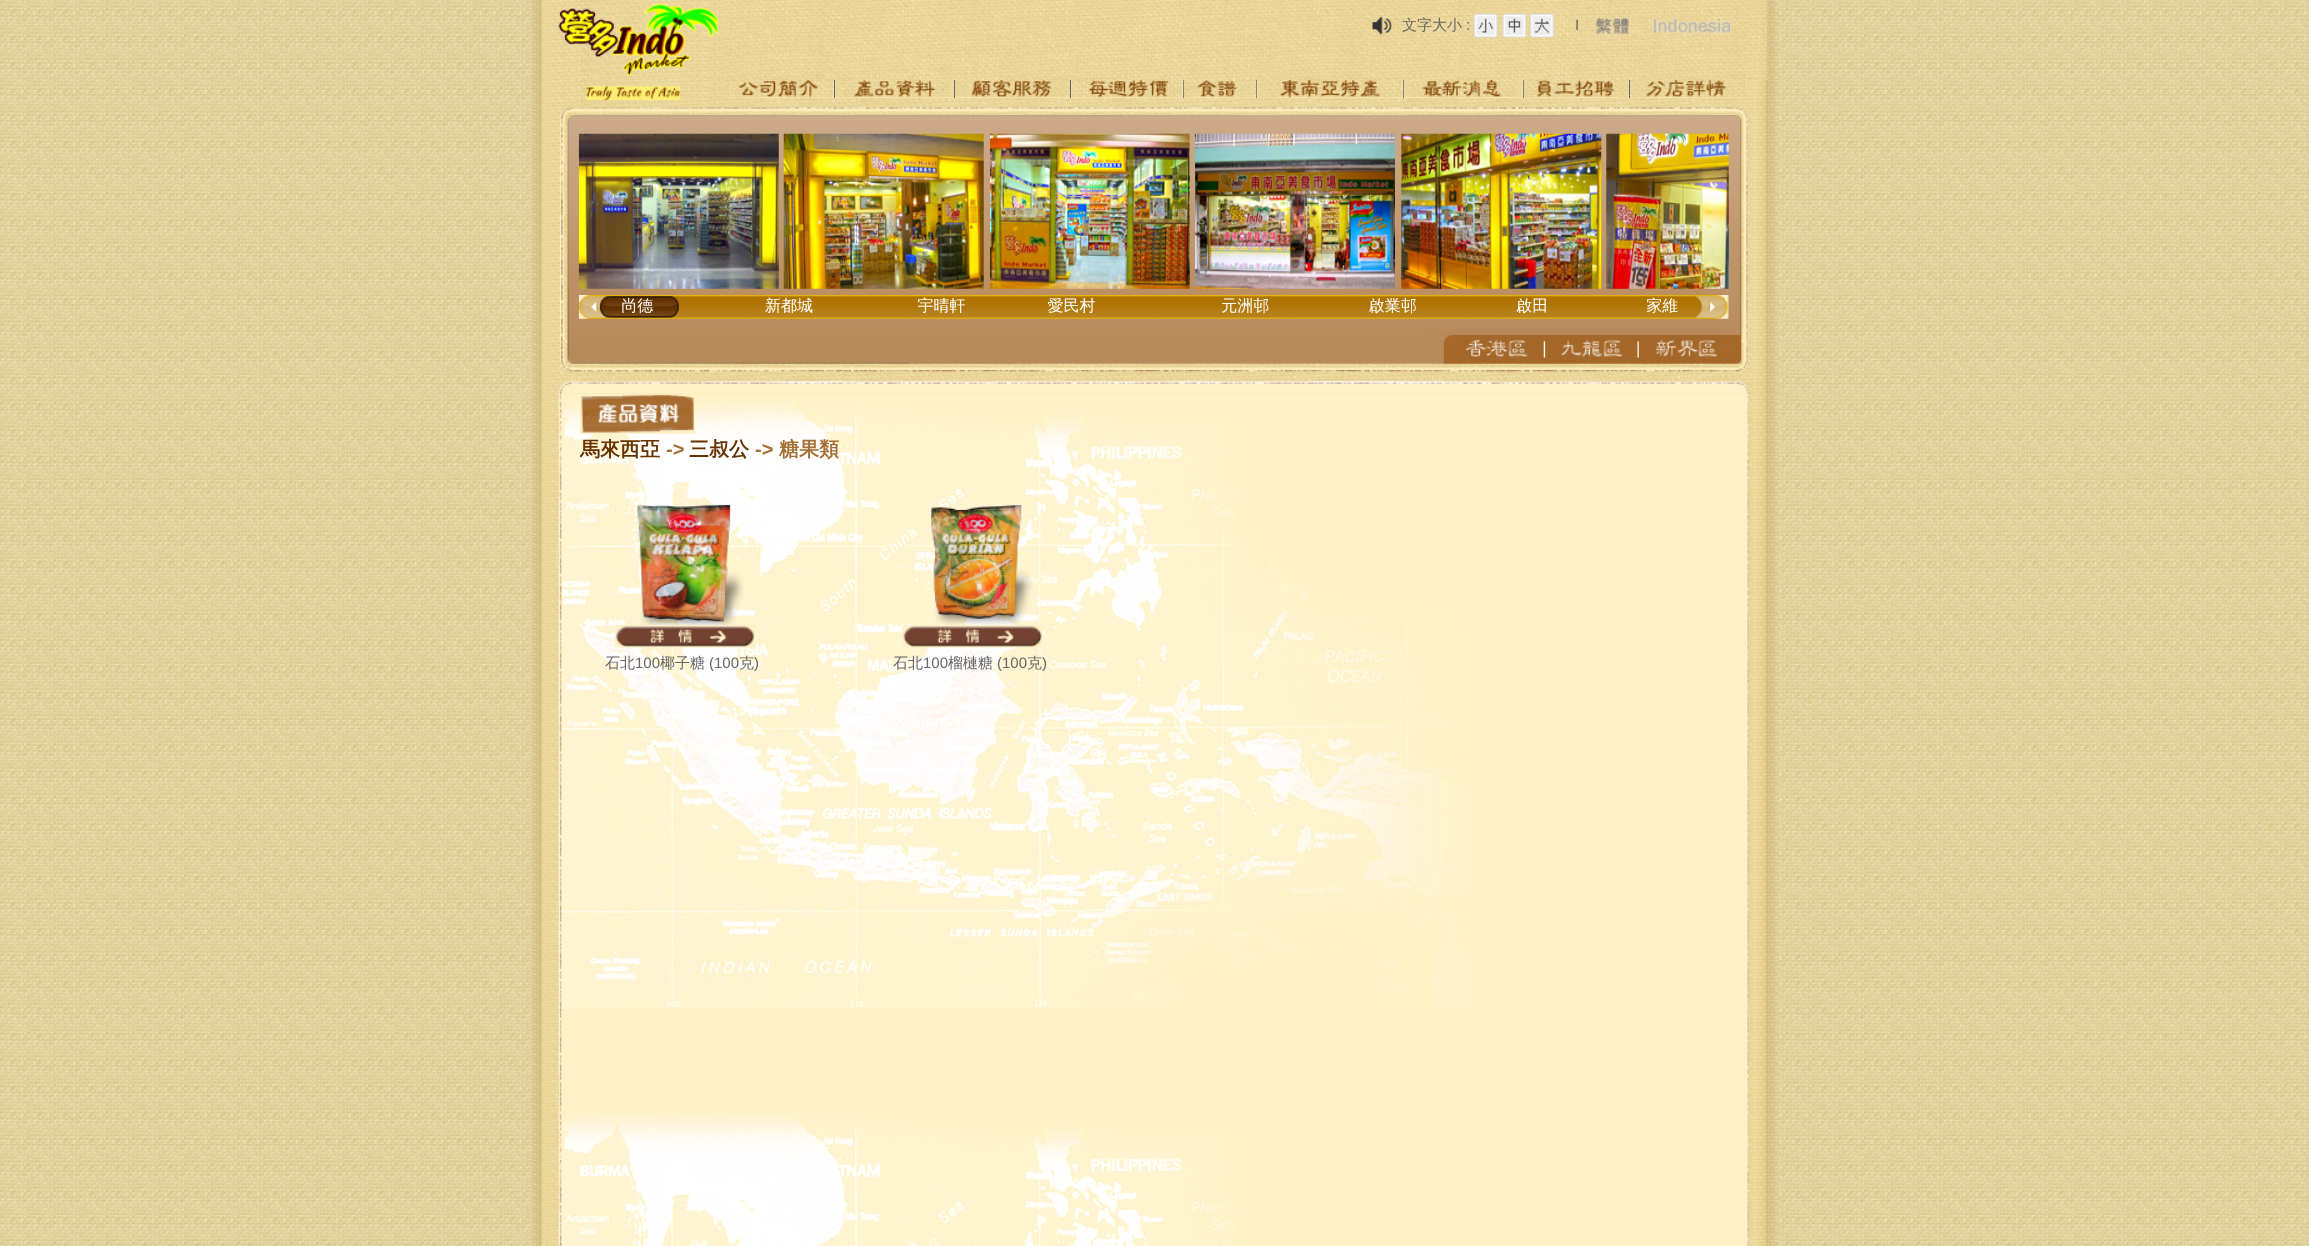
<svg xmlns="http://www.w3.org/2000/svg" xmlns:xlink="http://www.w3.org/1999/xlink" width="2309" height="1246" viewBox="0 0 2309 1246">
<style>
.cls-1{font:500 15px WenQuanYi Zen Hei;fill:#666666}
.cls-2{font:15px Liberation Sans;fill:#666666}
.cls-3{font:bold 20px WenQuanYi Zen Hei;fill:#663300}
.cls-4{font:bold 20px Liberation Sans;fill:#a56f33}
.cls-5{font:bold 20px WenQuanYi Zen Hei;fill:#a56f33}
</style>
<rect width="100%" height="100%" fill="#ffffff"/>
<image xlink:href="image0.png" x="0" y="0" width="2309" height="1246"/>
<image xlink:href="image1.png" x="532" y="0" width="1247" height="1246"/>
<image xlink:href="image2.png" x="558" y="3" width="161" height="98"/>
<image xlink:href="image3.png" x="725" y="0" width="1043" height="80"/>
<image xlink:href="image4.png" x="1372" y="16" width="20" height="19"/>
<image xlink:href="image5.png" x="1473" y="13" width="25" height="25"/>
<image xlink:href="image6.png" x="1502" y="13" width="25" height="25"/>
<image xlink:href="image7.png" x="1530" y="13" width="24" height="25"/>
<image xlink:href="image8.png" x="1595" y="16" width="35" height="19"/>
<image xlink:href="image9.png" x="1652" y="17" width="80" height="17"/>
<rect fill="#fff0c5" x="725" y="80" width="1020" height="18"/>
<rect fill="#666666" x="834" y="80" width="1" height="18"/>
<image xlink:href="image10.png" x="725" y="80" width="109" height="18"/>
<rect fill="#666666" x="954" y="80" width="1" height="18"/>
<image xlink:href="image11.png" x="835" y="80" width="119" height="18"/>
<rect fill="#666666" x="1070" y="80" width="1" height="18"/>
<image xlink:href="image12.png" x="955" y="80" width="115" height="18"/>
<rect fill="#666666" x="1183" y="80" width="1" height="18"/>
<image xlink:href="image13.png" x="1071" y="80" width="112" height="18"/>
<rect fill="#666666" x="1256" y="80" width="1" height="18"/>
<image xlink:href="image14.png" x="1183" y="80" width="74" height="18"/>
<rect fill="#666666" x="1403" y="80" width="1" height="18"/>
<image xlink:href="image15.png" x="1257" y="80" width="146" height="18"/>
<rect fill="#666666" x="1523" y="80" width="1" height="18"/>
<image xlink:href="image16.png" x="1403" y="80" width="120" height="18"/>
<rect fill="#666666" x="1629" y="80" width="1" height="18"/>
<image xlink:href="image17.png" x="1523" y="80" width="106" height="18"/>
<image xlink:href="image18.png" x="1630" y="80" width="115" height="18"/>
<image xlink:href="image19.png" x="560" y="106" width="1190" height="268"/>
<image xlink:href="image20.png" x="558" y="381" width="1195" height="13"/>
<image xlink:href="image21.png" x="556" y="393" width="1196" height="853"/>
<image xlink:href="image22.png" x="580" y="394" width="115" height="40"/>
<image xlink:href="image23.png" x="637" y="504" width="107" height="121"/>
<image xlink:href="image24.png" x="615" y="625" width="140" height="23"/>
<image xlink:href="image25.png" x="931" y="504" width="102" height="121"/>
<image xlink:href="image26.png" x="902" y="625" width="141" height="23"/>
<text class="cls-1" x="1402" y="30">文字大小</text>
<text class="cls-2" x="1466" y="30">:</text>
<text class="cls-2" x="1575" y="30">I</text>
<text class="cls-3" x="580" y="456">馬來西亞</text>
<text class="cls-4" x="666" y="456">-&gt;</text>
<text class="cls-3" x="689" y="456">三叔公</text>
<text class="cls-4" x="755" y="456">-&gt;</text>
<text class="cls-5" x="779" y="456">糖果類</text>
<text class="cls-1" x="605" y="668">石北</text>
<text class="cls-2" x="635" y="668">100</text>
<text class="cls-1" x="660" y="668">椰子糖</text>
<text class="cls-2" x="709" y="668">(100</text>
<text class="cls-1" x="739" y="668">克</text>
<text class="cls-2" x="754" y="668">)</text>
<text class="cls-1" x="893" y="668">石北</text>
<text class="cls-2" x="923" y="668">100</text>
<text class="cls-1" x="948" y="668">榴槤糖</text>
<text class="cls-2" x="997" y="668">(100</text>
<text class="cls-1" x="1027" y="668">克</text>
<text class="cls-2" x="1042" y="668">)</text>
</svg>
